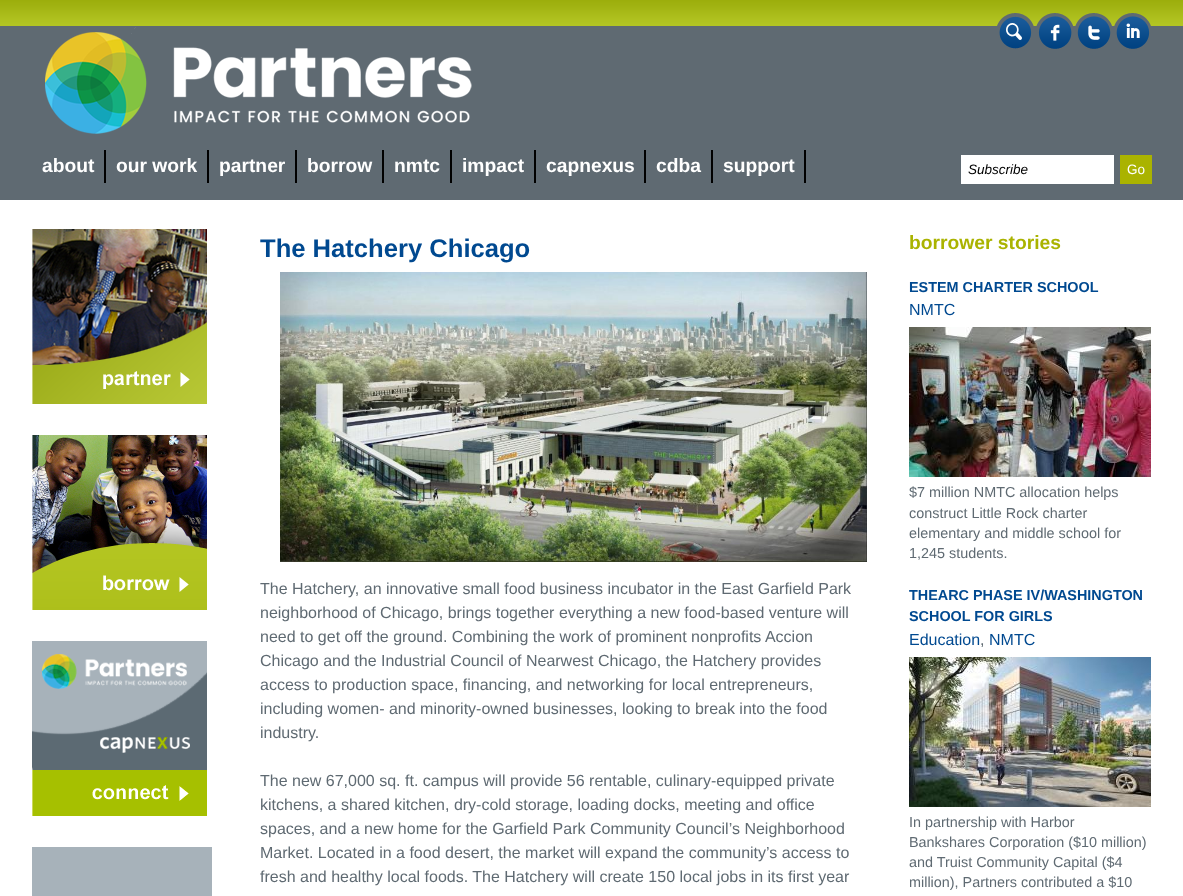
<svg xmlns="http://www.w3.org/2000/svg" xmlns:xlink="http://www.w3.org/1999/xlink" width="1183" height="896" viewBox="0 0 1183 896">
<style>
.cls-1{font:bold 19.25px Liberation Sans;fill:#ffffff}
.cls-2{font:italic 13.5px Liberation Sans;fill:#000000}
.cls-3{font:13.5px Liberation Sans;fill:#ffffff}
.cls-4{font:bold 25.6px Liberation Sans;fill:#004990}
.cls-5{font:16px Liberation Sans;fill:#5f6a72}
.cls-6{font:bold 19.25px Liberation Sans;fill:#aab300}
.cls-7{font:bold 14.4px Liberation Sans;fill:#004990}
.cls-8{font:16px Liberation Sans;fill:#004990}
.cls-9{font:14.4px Liberation Sans;fill:#5f6a72}
</style>
<rect width="100%" height="100%" fill="#ffffff"/>
<image xlink:href="image0.png" x="0" y="0" width="1183" height="200"/>
<image xlink:href="image1.png" x="45" y="27" width="427" height="107"/>
<image xlink:href="image2.png" x="997" y="13" width="37" height="36"/>
<image xlink:href="image3.png" x="1036" y="13" width="37" height="36"/>
<image xlink:href="image4.png" x="1075" y="13" width="37" height="36"/>
<image xlink:href="image5.png" x="1114" y="13" width="37" height="36"/>
<rect fill="#000000" x="104" y="150" width="2" height="33"/>
<rect fill="#000000" x="207" y="150" width="2" height="33"/>
<rect fill="#000000" x="295" y="150" width="2" height="33"/>
<rect fill="#000000" x="382" y="150" width="2" height="33"/>
<rect fill="#000000" x="450" y="150" width="2" height="33"/>
<rect fill="#000000" x="534" y="150" width="2" height="33"/>
<rect fill="#000000" x="644" y="150" width="2" height="33"/>
<rect fill="#000000" x="711" y="150" width="2" height="33"/>
<rect fill="#000000" x="804" y="150" width="2" height="33"/>
<rect fill="#ffffff" x="961" y="155" width="153" height="29"/>
<rect fill="#aab300" x="1120" y="155" width="32" height="29"/>
<image xlink:href="image6.png" x="32" y="229" width="175" height="175"/>
<image xlink:href="image7.png" x="32" y="435" width="175" height="175"/>
<image xlink:href="image8.png" x="32" y="641" width="175" height="175"/>
<rect fill="#a7b2ba" x="32" y="847" width="180" height="49"/>
<image xlink:href="image9.png" x="280" y="272" width="587" height="290"/>
<image xlink:href="image10.png" x="909" y="327" width="242" height="150"/>
<image xlink:href="image11.png" x="909" y="657" width="242" height="150"/>
<text class="cls-1" x="42" y="172">about</text>
<text class="cls-1" x="116" y="172">our work</text>
<text class="cls-1" x="219" y="172">partner</text>
<text class="cls-1" x="307" y="172">borrow</text>
<text class="cls-1" x="394" y="172">nmtc</text>
<text class="cls-1" x="462" y="172">impact</text>
<text class="cls-1" x="546" y="172">capnexus</text>
<text class="cls-1" x="656" y="172">cdba</text>
<text class="cls-1" x="723" y="172">support</text>
<text class="cls-2" x="968" y="174">Subscribe</text>
<text class="cls-3" x="1127" y="174">Go</text>
<text class="cls-4" x="260" y="257">The Hatchery Chicago</text>
<text class="cls-5"><tspan x="260" y="594">The Hatchery, an innovative small food business incubator in the East Garfield Park</tspan><tspan x="260" y="618">neighborhood of Chicago, brings together everything a new food-based venture will</tspan><tspan x="260" y="642">need to get off the ground. Combining the work of prominent nonprofits Accion</tspan><tspan x="260" y="666">Chicago and the Industrial Council of Nearwest Chicago, the Hatchery provides</tspan><tspan x="260" y="690">access to production space, financing, and networking for local entrepreneurs,</tspan><tspan x="260" y="714">including women- and minority-owned businesses, looking to break into the food</tspan><tspan x="260" y="738">industry.</tspan></text>
<text class="cls-5"><tspan x="260" y="786">The new 67,000 sq. ft. campus will provide 56 rentable, culinary-equipped private</tspan><tspan x="260" y="810">kitchens, a shared kitchen, dry-cold storage, loading docks, meeting and office</tspan><tspan x="260" y="834">spaces, and a new home for the Garfield Park Community Council’s Neighborhood</tspan><tspan x="260" y="858">Market. Located in a food desert, the market will expand the community’s access to</tspan><tspan x="260" y="882">fresh and healthy local foods. The Hatchery will create 150 local jobs in its first year</tspan></text>
<text class="cls-6" x="909" y="249">borrower stories</text>
<text class="cls-7" x="909" y="292">ESTEM CHARTER SCHOOL</text>
<text class="cls-8" x="909" y="315">NMTC</text>
<text class="cls-9"><tspan x="909" y="497">$7 million NMTC allocation helps</tspan><tspan x="909" y="518">construct Little Rock charter</tspan><tspan x="909" y="538">elementary and middle school for</tspan><tspan x="909" y="558">1,245 students.</tspan></text>
<text class="cls-7"><tspan x="909" y="600">THEARC PHASE IV/WASHINGTON</tspan><tspan x="909" y="621">SCHOOL FOR GIRLS</tspan></text>
<text class="cls-8" x="909" y="645">Education</text>
<text class="cls-5" x="980" y="645">,</text>
<text class="cls-8" x="989" y="645">NMTC</text>
<text class="cls-9"><tspan x="909" y="827">In partnership with Harbor</tspan><tspan x="909" y="847">Bankshares Corporation ($10 million)</tspan><tspan x="909" y="867">and Truist Community Capital ($4</tspan><tspan x="909" y="887">million), Partners contributed a $10</tspan></text>
</svg>
